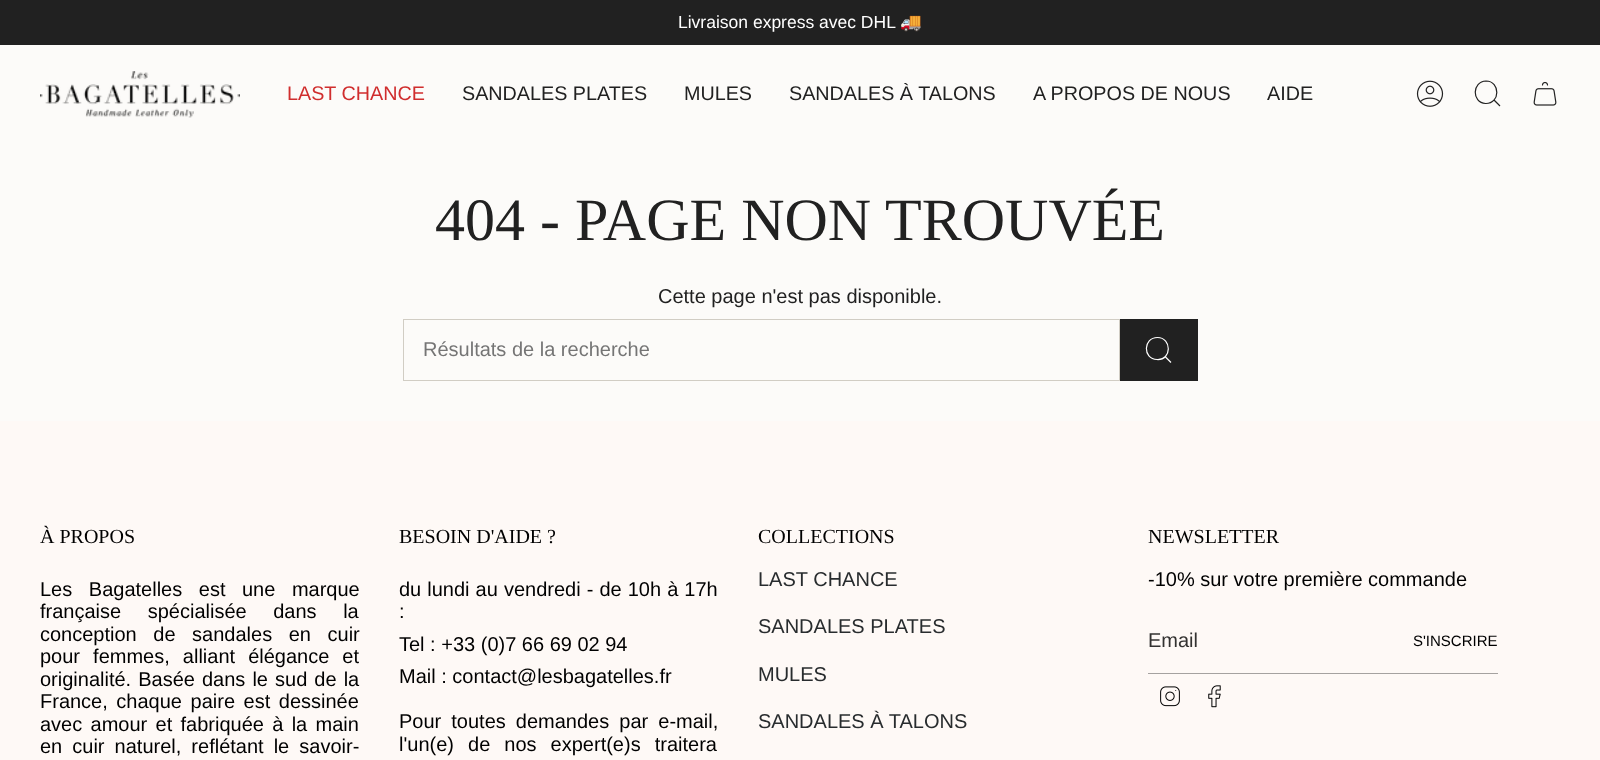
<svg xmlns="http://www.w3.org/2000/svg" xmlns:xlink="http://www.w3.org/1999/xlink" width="1600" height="760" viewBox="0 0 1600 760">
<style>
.cls-1{font:17.5px Liberation Sans;fill:#ffffff}
.cls-2{font:17.5px Noto Color Emoji;fill:#ffffff}
.cls-3{font:19.75px Liberation Sans;fill:#d02e2e}
.cls-4{font:19.75px Liberation Sans;fill:#212121}
.cls-5{font:60px Liberation Serif;fill:#212121}
.cls-6{font:20px Liberation Sans;fill:#212121}
.cls-7{font:20px Liberation Sans;fill:#757575}
.cls-8{font:20px Liberation Serif;fill:#000000}
.cls-9{font:20px Liberation Sans;fill:#000000}
.cls-10{font:20px Liberation Sans;fill:#282c2e}
.cls-11{font:20px Liberation Sans;fill:#333231}
.cls-12{font:15px Liberation Sans;fill:#000000}
</style>
<rect width="100%" height="100%" fill="#fcfbf9"/>
<rect fill="#212121" x="0" y="0" width="1600" height="45"/>
<image xlink:href="image0.png" x="40" y="71" width="200" height="47"/>
<image xlink:href="image1.png" x="1416" y="80" width="28" height="27"/>
<path fill="none" stroke="#212121" stroke-width="1.2" d="M1486 81C1500.5 81 1500.5 104 1485.5 103.5C1471.5 102.5 1472 81.5 1486 81ZM1494 100L1500 106"/>
<image xlink:href="image2.png" x="1533" y="81" width="24" height="25"/>
<rect fill="none" stroke="#d1cdc4" x="403.5" y="319.5" width="716" height="61"/>
<rect fill="#212121" x="1120" y="319" width="78" height="62"/>
<path fill="none" stroke="#ffffff" stroke-width="1.2" d="M1157.5 337.5C1172 337.5 1172 360.5 1157 359.5C1142.5 359 1143 337.5 1157.5 337.5ZM1165 356.5L1171 362.5"/>
<rect fill="#fef9f6" x="0" y="421" width="1600" height="339"/>
<rect fill="#a5a2a0" x="1148" y="673" width="350" height="1"/>
<image xlink:href="image3.png" x="1160" y="686" width="20" height="21"/>
<image xlink:href="image4.png" x="1208" y="685" width="13" height="23"/>
<text class="cls-1" x="678" y="28">Livraison express avec DHL</text>
<text class="cls-2" x="900" y="28">🚚</text>
<text class="cls-3" x="287" y="100">LAST CHANCE</text>
<text class="cls-4" x="462" y="100">SANDALES PLATES</text>
<text class="cls-4" x="684" y="100">MULES</text>
<text class="cls-4" x="789" y="100">SANDALES À TALONS</text>
<text class="cls-4" x="1033" y="100">A PROPOS DE NOUS</text>
<text class="cls-4" x="1267" y="100">AIDE</text>
<text class="cls-5" x="435" y="240">404 - PAGE NON TROUVÉE</text>
<text class="cls-6" x="658" y="303">Cette page n'est pas disponible.</text>
<text class="cls-7" x="423" y="356">Résultats de la recherche</text>
<text class="cls-8" x="40" y="543">À PROPOS</text>
<text class="cls-9"><tspan x="40" y="596" word-spacing="11">Les Bagatelles est une marque</tspan><tspan x="40" y="618" word-spacing="21">française spécialisée dans la</tspan><tspan x="40" y="641" word-spacing="11">conception de sandales en cuir</tspan><tspan x="40" y="663" word-spacing="7.5">pour femmes, alliant élégance et</tspan><tspan x="40" y="686" word-spacing="1.5">originalité. Basée dans le sud de la</tspan><tspan x="40" y="708" word-spacing="3">France, chaque paire est dessinée</tspan><tspan x="40" y="731" word-spacing="2.75">avec amour et fabriquée à la main</tspan><tspan x="40" y="753" word-spacing="4.5">en cuir naturel, reflétant le savoir-</tspan></text>
<text class="cls-8" x="399" y="543">BESOIN D'AIDE ?</text>
<text class="cls-9"><tspan x="399" y="596" word-spacing="0.5">du lundi au vendredi - de 10h à 17h</tspan><tspan x="399" y="618">:</tspan><tspan x="399" y="651">Tel : +33 (0)7 66 69 02 94</tspan><tspan x="399" y="683">Mail : contact@lesbagatelles.fr</tspan></text>
<text class="cls-9"><tspan x="399" y="728" word-spacing="4.5">Pour toutes demandes par e-mail,</tspan><tspan x="399" y="751" word-spacing="8.5">l'un(e) de nos expert(e)s traitera</tspan></text>
<text class="cls-8" x="758" y="543">COLLECTIONS</text>
<text class="cls-10" x="758" y="586">LAST CHANCE</text>
<text class="cls-10" x="758" y="633">SANDALES PLATES</text>
<text class="cls-10" x="758" y="681">MULES</text>
<text class="cls-10" x="758" y="728">SANDALES À TALONS</text>
<text class="cls-8" x="1148" y="543">NEWSLETTER</text>
<text class="cls-9" x="1148" y="586">-10% sur votre première commande</text>
<text class="cls-11" x="1148" y="647">Email</text>
<text class="cls-12" x="1413" y="646">S'INSCRIRE</text>
</svg>
